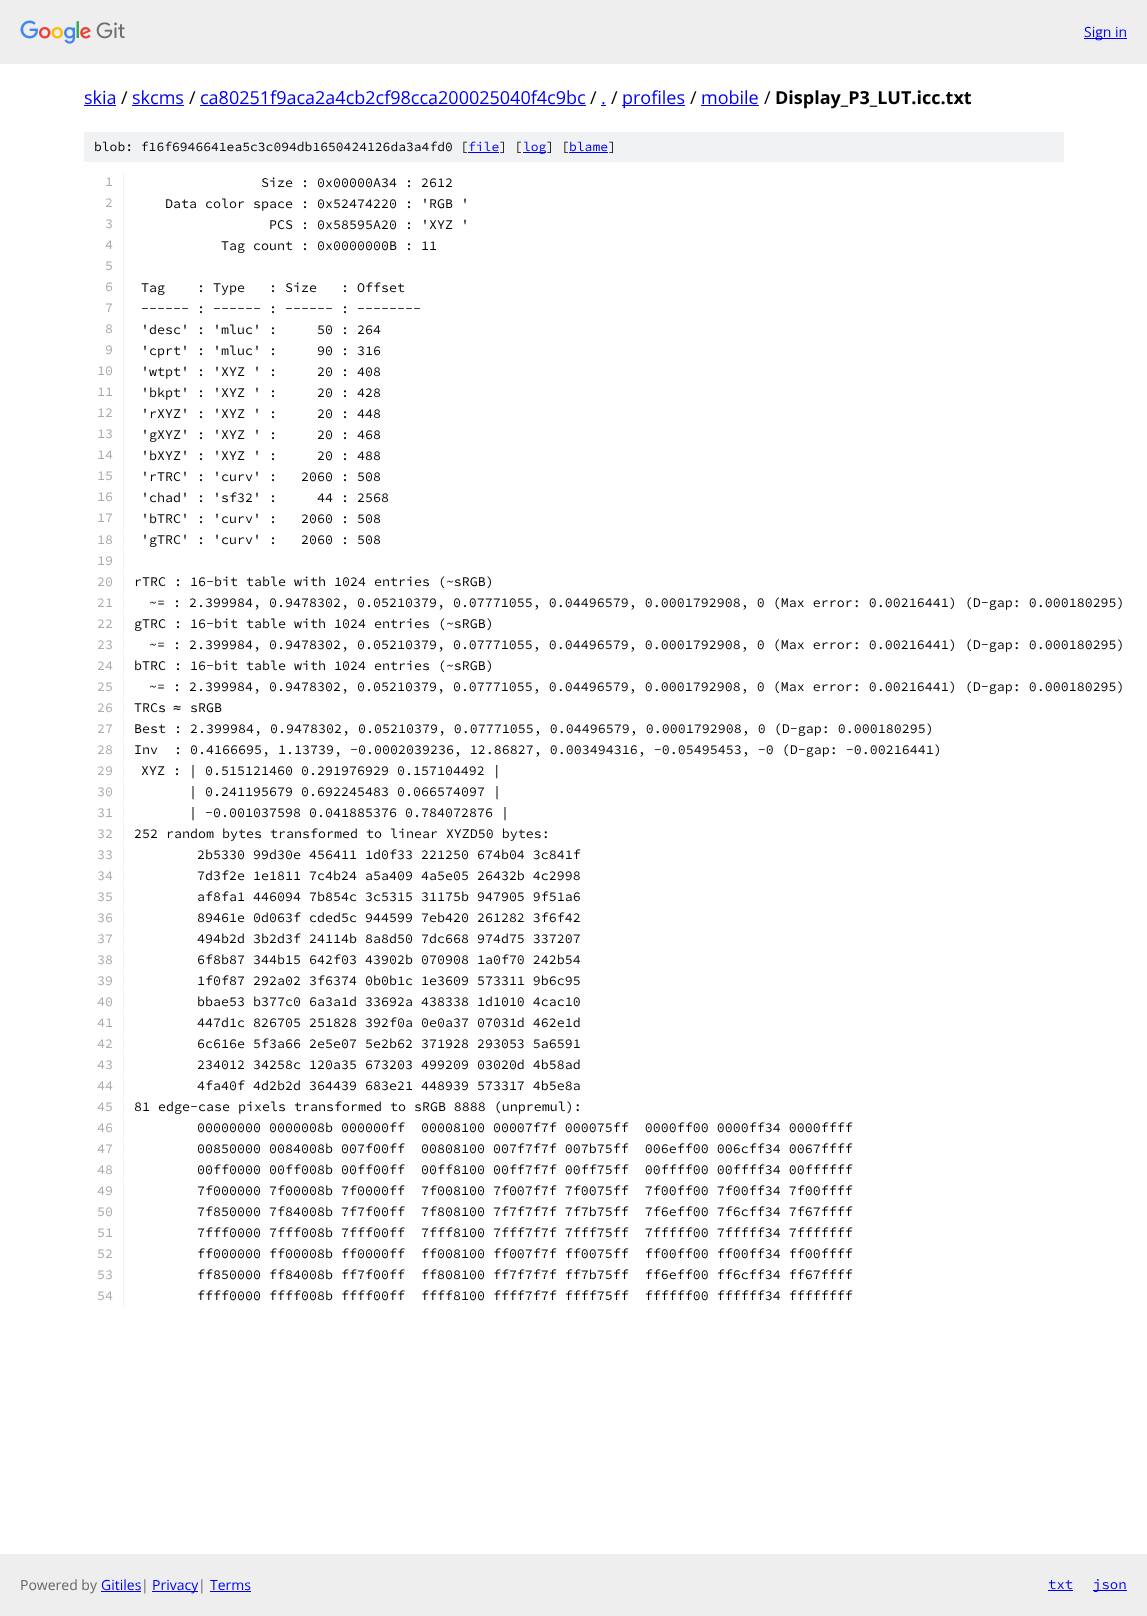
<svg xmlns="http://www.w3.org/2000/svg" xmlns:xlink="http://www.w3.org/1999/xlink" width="1147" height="1616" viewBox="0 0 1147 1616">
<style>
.cls-1{font:14px Open Sans;fill:#0000ee}
.cls-2{font:18px Open Sans;fill:#0000ee}
.cls-3{font:18px Open Sans;fill:#000000}
.cls-4{font:bold 18px Open Sans;fill:#000000}
.cls-5{font:200 13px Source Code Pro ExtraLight;fill:#000000}
.cls-6{font:200 13px Source Code Pro ExtraLight;fill:#0000ee}
.cls-7{font:200 13.33px Source Code Pro ExtraLight;fill:#aaaaaa}
.cls-8{font:200 13.33px Source Code Pro ExtraLight;fill:#000000}
.cls-9{font:13.33px DejaVu Sans Mono;fill:#000000}
.cls-10{font:14px Open Sans;fill:#666666}
.cls-11{font:200 14px Source Code Pro ExtraLight;fill:#0000ee}
</style>
<rect width="100%" height="100%" fill="#ffffff"/>
<rect fill="#eeeeee" x="0" y="0" width="1147" height="64"/>
<image xlink:href="image0.png" x="20" y="20" width="105" height="24"/>
<rect fill="#0000ee" x="1084" y="38" width="43" height="1"/>
<rect fill="#0000ee" x="84" y="105" width="32" height="1"/>
<rect fill="#0000ee" x="132" y="105" width="52" height="1"/>
<rect fill="#0000ee" x="200" y="105" width="386" height="1"/>
<rect fill="#0000ee" x="601" y="105" width="5" height="1"/>
<rect fill="#0000ee" x="622" y="105" width="63" height="1"/>
<rect fill="#0000ee" x="701" y="105" width="58" height="1"/>
<rect fill="#f1f2f3" x="84" y="132" width="980" height="30"/>
<rect fill="#0000ee" x="468" y="152" width="31" height="1"/>
<rect fill="#0000ee" x="523" y="152" width="23" height="1"/>
<rect fill="#0000ee" x="569" y="152" width="39" height="1"/>
<rect fill="#f1f2f3" x="123" y="172" width="1" height="357"/>
<rect fill="#f1f2f3" x="123" y="530" width="1" height="20"/>
<rect fill="#f1f2f3" x="123" y="551" width="1" height="20"/>
<rect fill="#f1f2f3" x="123" y="572" width="1" height="20"/>
<rect fill="#f1f2f3" x="123" y="593" width="1" height="20"/>
<rect fill="#f1f2f3" x="123" y="614" width="1" height="20"/>
<rect fill="#f1f2f3" x="123" y="635" width="1" height="20"/>
<rect fill="#f1f2f3" x="123" y="656" width="1" height="20"/>
<rect fill="#f1f2f3" x="123" y="677" width="1" height="20"/>
<rect fill="#f1f2f3" x="123" y="698" width="1" height="20"/>
<rect fill="#f1f2f3" x="123" y="719" width="1" height="20"/>
<rect fill="#f1f2f3" x="123" y="740" width="1" height="20"/>
<rect fill="#f1f2f3" x="123" y="761" width="1" height="20"/>
<rect fill="#f1f2f3" x="123" y="782" width="1" height="20"/>
<rect fill="#f1f2f3" x="123" y="803" width="1" height="20"/>
<rect fill="#f1f2f3" x="123" y="824" width="1" height="20"/>
<rect fill="#f1f2f3" x="123" y="845" width="1" height="20"/>
<rect fill="#f1f2f3" x="123" y="866" width="1" height="20"/>
<rect fill="#f1f2f3" x="123" y="887" width="1" height="20"/>
<rect fill="#f1f2f3" x="123" y="908" width="1" height="20"/>
<rect fill="#f1f2f3" x="123" y="929" width="1" height="20"/>
<rect fill="#f1f2f3" x="123" y="950" width="1" height="20"/>
<rect fill="#f1f2f3" x="123" y="971" width="1" height="20"/>
<rect fill="#f1f2f3" x="123" y="992" width="1" height="20"/>
<rect fill="#f1f2f3" x="123" y="1013" width="1" height="20"/>
<rect fill="#f1f2f3" x="123" y="1034" width="1" height="20"/>
<rect fill="#f1f2f3" x="123" y="1055" width="1" height="20"/>
<rect fill="#f1f2f3" x="123" y="1076" width="1" height="20"/>
<rect fill="#f1f2f3" x="123" y="1097" width="1" height="20"/>
<rect fill="#f1f2f3" x="123" y="1118" width="1" height="20"/>
<rect fill="#f1f2f3" x="123" y="1139" width="1" height="20"/>
<rect fill="#f1f2f3" x="123" y="1160" width="1" height="20"/>
<rect fill="#f1f2f3" x="123" y="1181" width="1" height="126"/>
<rect fill="#eeeeee" x="0" y="1554" width="1147" height="62"/>
<rect fill="#0000ee" x="101" y="1591" width="40" height="1"/>
<rect fill="#0000ee" x="152" y="1591" width="46" height="1"/>
<rect fill="#0000ee" x="210" y="1591" width="41" height="1"/>
<rect fill="#0000ee" x="1048" y="1590" width="25" height="1"/>
<rect fill="#0000ee" x="1093" y="1590" width="34" height="1"/>
<text class="cls-1" x="1084" y="37">Sign in</text>
<text class="cls-2" x="84" y="104">skia</text>
<text class="cls-3" x="121" y="104">/</text>
<text class="cls-2" x="132" y="104">skcms</text>
<text class="cls-3" x="189" y="104">/</text>
<text class="cls-2" x="200" y="104">ca80251f9aca2a4cb2cf98cca200025040f4c9bc</text>
<text class="cls-3" x="590" y="104">/</text>
<text class="cls-2" x="601" y="104">.</text>
<text class="cls-3" x="611" y="104">/</text>
<text class="cls-2" x="622" y="104">profiles</text>
<text class="cls-3" x="690" y="104">/</text>
<text class="cls-2" x="701" y="104">mobile</text>
<text class="cls-3" x="764" y="104">/</text>
<text class="cls-4" x="775" y="104">Display_P3_LUT.icc.txt</text>
<text class="cls-5" x="94" y="151">blob: f16f6946641ea5c3c094db1650424126da3a4fd0 [</text>
<text class="cls-6" x="468" y="151">file</text>
<text class="cls-5" x="499" y="151">] [</text>
<text class="cls-6" x="523" y="151">log</text>
<text class="cls-5" x="546" y="151">] [</text>
<text class="cls-6" x="569" y="151">blame</text>
<text class="cls-5" x="608" y="151">]</text>
<text class="cls-7" x="105" y="186">1</text>
<text class="cls-8" x="261" y="187">Size : 0x00000A34 : 2612</text>
<text class="cls-7" x="105" y="207">2</text>
<text class="cls-8" x="165" y="208">Data color space : 0x52474220 : 'RGB '</text>
<text class="cls-7" x="105" y="228">3</text>
<text class="cls-8" x="269" y="229">PCS : 0x58595A20 : 'XYZ '</text>
<text class="cls-7" x="105" y="249">4</text>
<text class="cls-8" x="221" y="250">Tag count : 0x0000000B : 11</text>
<text class="cls-7"><tspan x="105" y="270">5</tspan><tspan x="105" y="291">6</tspan></text>
<text class="cls-8" xml:space="preserve" x="141" y="292">Tag    : Type   : Size   : Offset</text>
<text class="cls-7" x="105" y="312">7</text>
<text class="cls-8" x="141" y="313">------ : ------ : ------ : --------</text>
<text class="cls-7" x="105" y="333">8</text>
<text class="cls-8" xml:space="preserve" x="141" y="334">'desc' : 'mluc' :     50 : 264</text>
<text class="cls-7" x="105" y="354">9</text>
<text class="cls-8" xml:space="preserve" x="141" y="355">'cprt' : 'mluc' :     90 : 316</text>
<text class="cls-7" x="97" y="375">10</text>
<text class="cls-8" xml:space="preserve" x="141" y="376">'wtpt' : 'XYZ ' :     20 : 408</text>
<text class="cls-7" x="97" y="396">11</text>
<text class="cls-8" xml:space="preserve" x="141" y="397">'bkpt' : 'XYZ ' :     20 : 428</text>
<text class="cls-7" x="97" y="417">12</text>
<text class="cls-8" xml:space="preserve" x="141" y="418">'rXYZ' : 'XYZ ' :     20 : 448</text>
<text class="cls-7" x="97" y="438">13</text>
<text class="cls-8" xml:space="preserve" x="141" y="439">'gXYZ' : 'XYZ ' :     20 : 468</text>
<text class="cls-7" x="97" y="459">14</text>
<text class="cls-8" xml:space="preserve" x="141" y="460">'bXYZ' : 'XYZ ' :     20 : 488</text>
<text class="cls-7" x="97" y="480">15</text>
<text class="cls-8" xml:space="preserve" x="141" y="481">'rTRC' : 'curv' :   2060 : 508</text>
<text class="cls-7" x="97" y="501">16</text>
<text class="cls-8" xml:space="preserve" x="141" y="502">'chad' : 'sf32' :     44 : 2568</text>
<text class="cls-7" x="97" y="522">17</text>
<text class="cls-8" xml:space="preserve" x="141" y="523">'bTRC' : 'curv' :   2060 : 508</text>
<text class="cls-7" x="97" y="544">18</text>
<text class="cls-8" xml:space="preserve" x="141" y="544">'gTRC' : 'curv' :   2060 : 508</text>
<text class="cls-7"><tspan x="97" y="565">19</tspan><tspan x="97" y="586">20</tspan></text>
<text class="cls-8" x="134" y="586">rTRC : 16-bit table with 1024 entries (~sRGB)</text>
<text class="cls-7" x="97" y="607">21</text>
<text class="cls-8" x="149" y="607">~= : 2.399984, 0.9478302, 0.05210379, 0.07771055, 0.04496579, 0.0001792908, 0 (Max error: 0.00216441) (D-gap: 0.000180295)</text>
<text class="cls-7" x="97" y="628">22</text>
<text class="cls-8" x="134" y="628">gTRC : 16-bit table with 1024 entries (~sRGB)</text>
<text class="cls-7" x="97" y="649">23</text>
<text class="cls-8" x="149" y="649">~= : 2.399984, 0.9478302, 0.05210379, 0.07771055, 0.04496579, 0.0001792908, 0 (Max error: 0.00216441) (D-gap: 0.000180295)</text>
<text class="cls-7" x="97" y="670">24</text>
<text class="cls-8" x="134" y="670">bTRC : 16-bit table with 1024 entries (~sRGB)</text>
<text class="cls-7" x="97" y="691">25</text>
<text class="cls-8" x="149" y="691">~= : 2.399984, 0.9478302, 0.05210379, 0.07771055, 0.04496579, 0.0001792908, 0 (Max error: 0.00216441) (D-gap: 0.000180295)</text>
<text class="cls-7" x="97" y="712">26</text>
<text class="cls-8" x="134" y="712">TRCs</text>
<text class="cls-9" x="173" y="712">≈</text>
<text class="cls-8" x="190" y="712">sRGB</text>
<text class="cls-7" x="97" y="733">27</text>
<text class="cls-8" x="134" y="733">Best : 2.399984, 0.9478302, 0.05210379, 0.07771055, 0.04496579, 0.0001792908, 0 (D-gap: 0.000180295)</text>
<text class="cls-7" x="97" y="754">28</text>
<text class="cls-8" xml:space="preserve" x="134" y="754">Inv  : 0.4166695, 1.13739, -0.0002039236, 12.86827, 0.003494316, -0.05495453, -0 (D-gap: -0.00216441)</text>
<text class="cls-7" x="97" y="775">29</text>
<text class="cls-8" x="141" y="775">XYZ : | 0.515121460 0.291976929 0.157104492 |</text>
<text class="cls-7" x="97" y="796">30</text>
<text class="cls-8" x="189" y="796">| 0.241195679 0.692245483 0.066574097 |</text>
<text class="cls-7" x="97" y="817">31</text>
<text class="cls-8" x="189" y="817">| -0.001037598 0.041885376 0.784072876 |</text>
<text class="cls-7" x="97" y="838">32</text>
<text class="cls-8" x="134" y="838">252 random bytes transformed to linear XYZD50 bytes:</text>
<text class="cls-7" x="97" y="859">33</text>
<text class="cls-8" x="197" y="859">2b5330 99d30e 456411 1d0f33 221250 674b04 3c841f</text>
<text class="cls-7" x="97" y="880">34</text>
<text class="cls-8" x="197" y="880">7d3f2e 1e1811 7c4b24 a5a409 4a5e05 26432b 4c2998</text>
<text class="cls-7" x="97" y="901">35</text>
<text class="cls-8" x="197" y="901">af8fa1 446094 7b854c 3c5315 31175b 947905 9f51a6</text>
<text class="cls-7" x="97" y="922">36</text>
<text class="cls-8" x="197" y="922">89461e 0d063f cded5c 944599 7eb420 261282 3f6f42</text>
<text class="cls-7" x="97" y="943">37</text>
<text class="cls-8" x="197" y="943">494b2d 3b2d3f 24114b 8a8d50 7dc668 974d75 337207</text>
<text class="cls-7" x="97" y="964">38</text>
<text class="cls-8" x="197" y="964">6f8b87 344b15 642f03 43902b 070908 1a0f70 242b54</text>
<text class="cls-7" x="97" y="985">39</text>
<text class="cls-8" x="197" y="985">1f0f87 292a02 3f6374 0b0b1c 1e3609 573311 9b6c95</text>
<text class="cls-7" x="97" y="1006">40</text>
<text class="cls-8" x="197" y="1006">bbae53 b377c0 6a3a1d 33692a 438338 1d1010 4cac10</text>
<text class="cls-7" x="97" y="1027">41</text>
<text class="cls-8" x="197" y="1027">447d1c 826705 251828 392f0a 0e0a37 07031d 462e1d</text>
<text class="cls-7" x="97" y="1048">42</text>
<text class="cls-8" x="197" y="1048">6c616e 5f3a66 2e5e07 5e2b62 371928 293053 5a6591</text>
<text class="cls-7" x="97" y="1069">43</text>
<text class="cls-8" x="197" y="1069">234012 34258c 120a35 673203 499209 03020d 4b58ad</text>
<text class="cls-7" x="97" y="1090">44</text>
<text class="cls-8" x="197" y="1090">4fa40f 4d2b2d 364439 683e21 448939 573317 4b5e8a</text>
<text class="cls-7" x="97" y="1111">45</text>
<text class="cls-8" x="134" y="1111">81 edge-case pixels transformed to sRGB 8888 (unpremul):</text>
<text class="cls-7" x="97" y="1132">46</text>
<text class="cls-8" xml:space="preserve" x="197" y="1132">00000000 0000008b 000000ff  00008100 00007f7f 000075ff  0000ff00 0000ff34 0000ffff</text>
<text class="cls-7" x="97" y="1153">47</text>
<text class="cls-8" xml:space="preserve" x="197" y="1153">00850000 0084008b 007f00ff  00808100 007f7f7f 007b75ff  006eff00 006cff34 0067ffff</text>
<text class="cls-7" x="97" y="1174">48</text>
<text class="cls-8" xml:space="preserve" x="197" y="1174">00ff0000 00ff008b 00ff00ff  00ff8100 00ff7f7f 00ff75ff  00ffff00 00ffff34 00ffffff</text>
<text class="cls-7" x="97" y="1195">49</text>
<text class="cls-8" xml:space="preserve" x="197" y="1195">7f000000 7f00008b 7f0000ff  7f008100 7f007f7f 7f0075ff  7f00ff00 7f00ff34 7f00ffff</text>
<text class="cls-7" x="97" y="1216">50</text>
<text class="cls-8" xml:space="preserve" x="197" y="1216">7f850000 7f84008b 7f7f00ff  7f808100 7f7f7f7f 7f7b75ff  7f6eff00 7f6cff34 7f67ffff</text>
<text class="cls-7" x="97" y="1237">51</text>
<text class="cls-8" xml:space="preserve" x="197" y="1237">7fff0000 7fff008b 7fff00ff  7fff8100 7fff7f7f 7fff75ff  7fffff00 7fffff34 7fffffff</text>
<text class="cls-7" x="97" y="1258">52</text>
<text class="cls-8" xml:space="preserve" x="197" y="1258">ff000000 ff00008b ff0000ff  ff008100 ff007f7f ff0075ff  ff00ff00 ff00ff34 ff00ffff</text>
<text class="cls-7" x="97" y="1279">53</text>
<text class="cls-8" xml:space="preserve" x="197" y="1279">ff850000 ff84008b ff7f00ff  ff808100 ff7f7f7f ff7b75ff  ff6eff00 ff6cff34 ff67ffff</text>
<text class="cls-7" x="97" y="1300">54</text>
<text class="cls-8" xml:space="preserve" x="197" y="1300">ffff0000 ffff008b ffff00ff  ffff8100 ffff7f7f ffff75ff  ffffff00 ffffff34 ffffffff</text>
<text class="cls-10" x="20" y="1590">Powered by</text>
<text class="cls-1" x="101" y="1590">Gitiles</text>
<text class="cls-10" x="141" y="1590">|</text>
<text class="cls-1" x="152" y="1590">Privacy</text>
<text class="cls-10" x="198" y="1590">|</text>
<text class="cls-1" x="210" y="1590">Terms</text>
<text class="cls-11" x="1048" y="1589">txt</text>
<text class="cls-11" x="1093" y="1589">json</text>
</svg>
